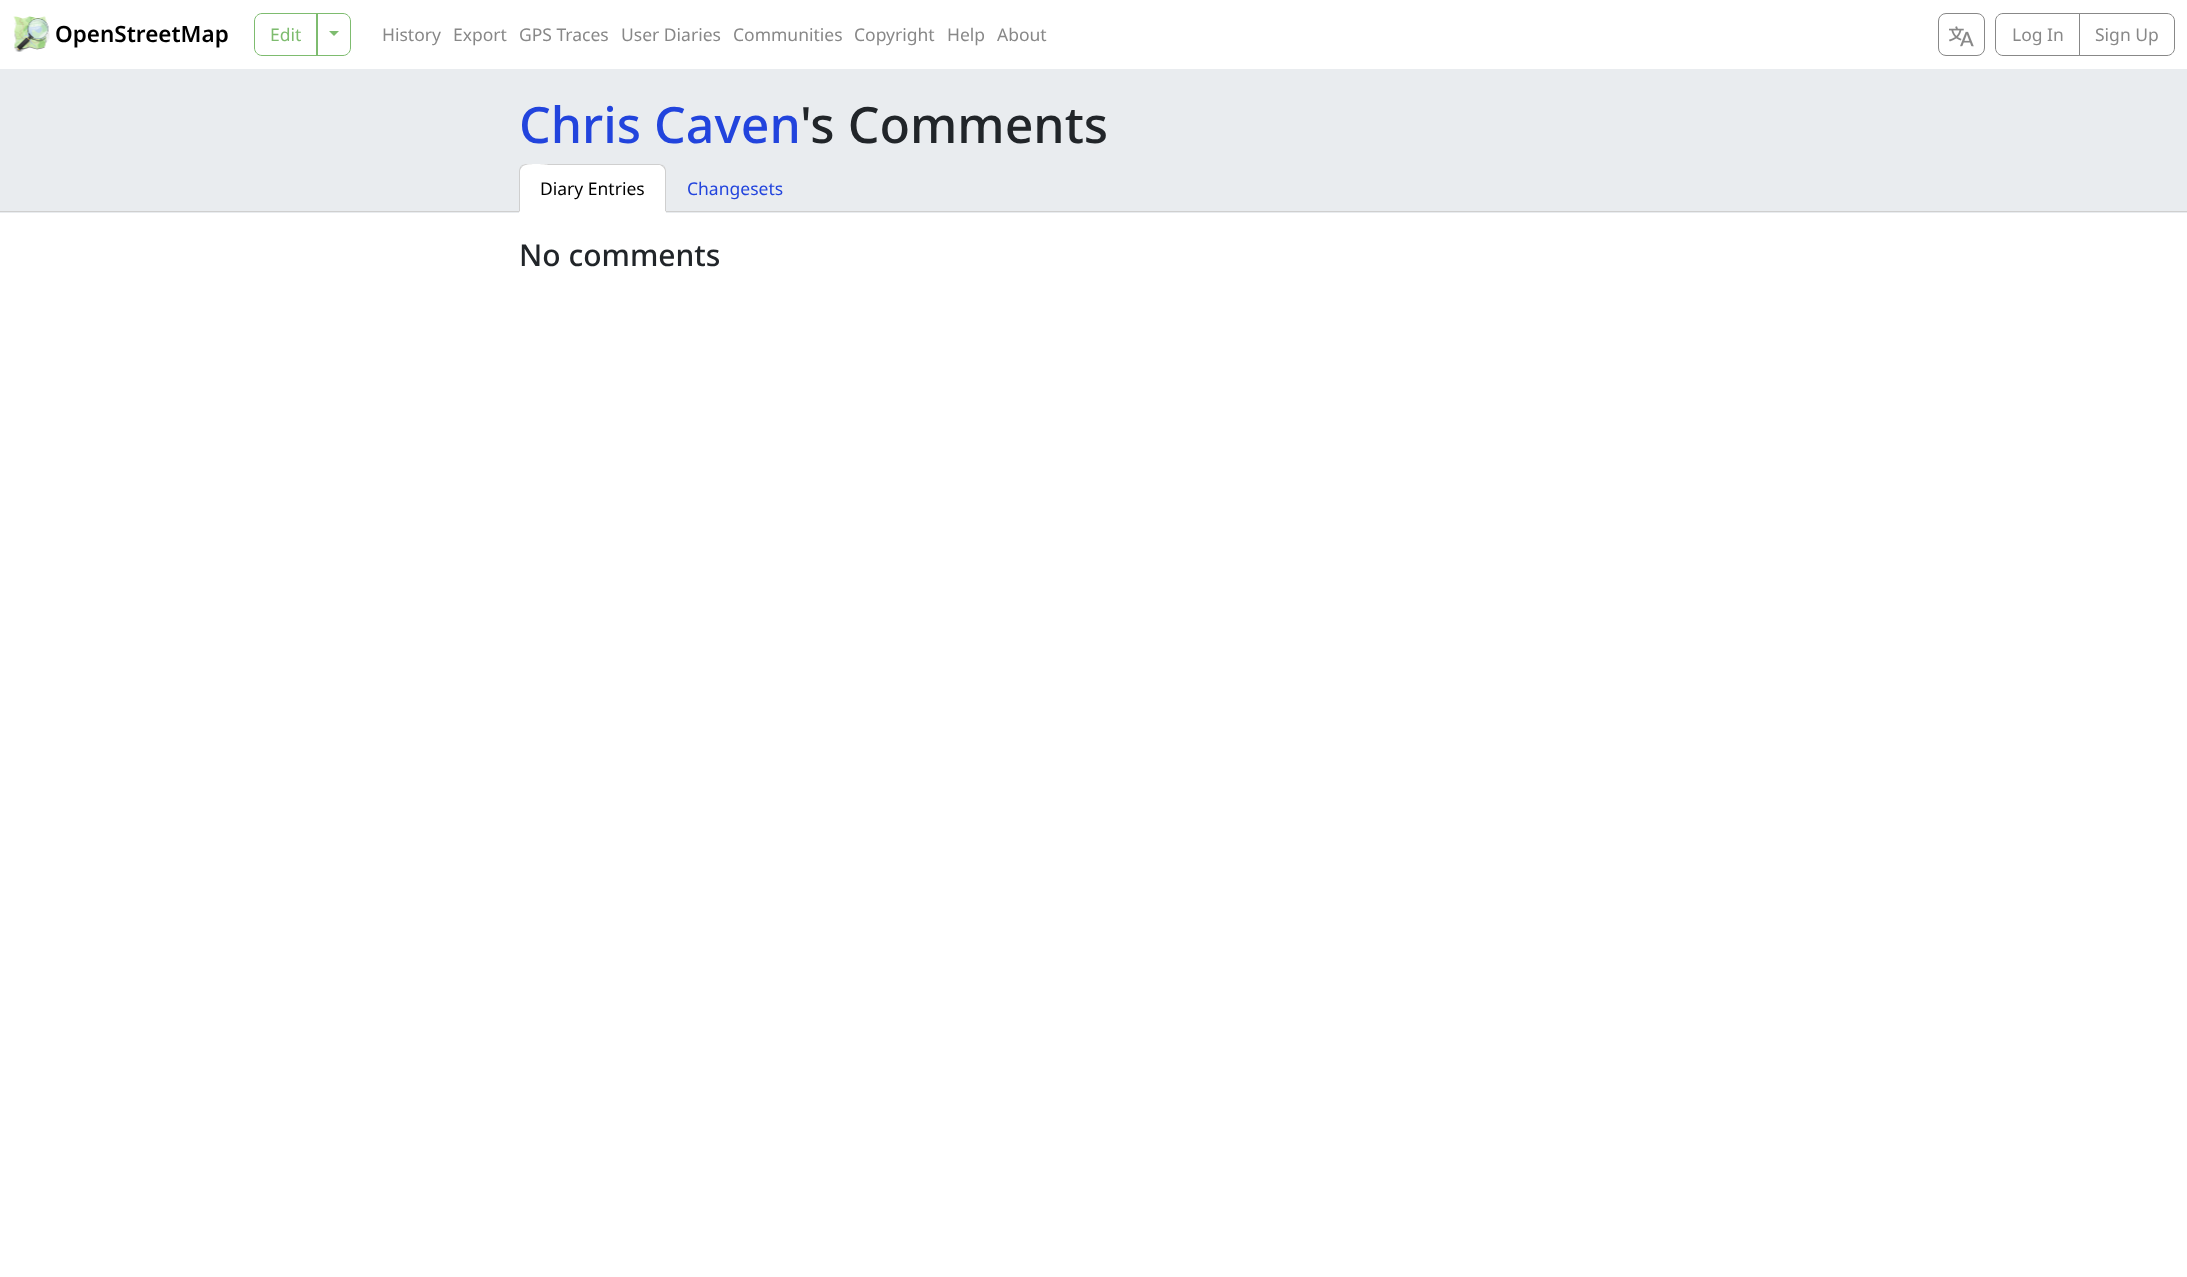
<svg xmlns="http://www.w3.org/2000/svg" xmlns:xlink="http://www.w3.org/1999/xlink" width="2187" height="1277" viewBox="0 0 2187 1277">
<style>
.cls-1{font:600 22.5px Noto Sans;fill:#000000}
.cls-2{font:17.5px Noto Sans;fill:#7ebc6f}
.cls-3{font:17.5px Noto Sans;fill:#888888}
.cls-4{font:500 50px Noto Sans;fill:#2244dd}
.cls-5{font:500 50px Noto Sans;fill:#212529}
.cls-6{font:17.5px Noto Sans;fill:#000000}
.cls-7{font:17.5px Noto Sans;fill:#2244dd}
.cls-8{font:500 30px Noto Sans;fill:#212529}
</style>
<rect width="100%" height="100%" fill="#ffffff"/>
<image xlink:href="image0.png" x="13" y="16" width="37" height="36"/>
<path fill="none" stroke="#7ebc6f" d="M262 13.5H317.5V55.5H262C258 55.5 254.5 52 254.5 48V21C254.5 17 258 13.5 262 13.5Z"/>
<path fill="none" stroke="#7ebc6f" d="M316.5 13.5H343C347 13.5 350.5 17 350.5 21V48C350.5 52 347 55.5 343 55.5H316.5Z"/>
<path fill="#7ebc6f" d="M329 31H339L334 36Z"/>
<rect fill="none" stroke="#888888" x="1938.5" y="13.5" width="46" height="42" rx="7.5"/>
<image xlink:href="image1.png" x="1949" y="26" width="25" height="21"/>
<path fill="none" stroke="#888888" d="M2003 13.5H2079.5V55.5H2003C1999 55.5 1995.5 52 1995.5 48V21C1995.5 17 1999 13.5 2003 13.5Z"/>
<path fill="none" stroke="#888888" d="M2079.5 13.5H2167C2171 13.5 2174.5 17 2174.5 21V48C2174.5 52 2171 55.5 2167 55.5H2079.5Z"/>
<rect fill="#e9ecef" x="0" y="69" width="2187" height="144"/>
<rect fill="#cfcfcf" x="0" y="211" width="2187" height="1"/>
<path fill="#ffffff" d="M527 164H658C662.5 164 666 167.5 666 172V213H519V172C519 167.5 522.5 164 527 164Z"/>
<path fill="#cfcfcf" d="M526 164C524 164 522 165 521 166L522 167C527 162 547 165 548 165H660L663 167L664 166C663 165 661 164 659 164Z"/>
<path fill="#cfcfcf" d="M665 211L666 212V171C666 169 665 167 664 166L663 167C664 168 665 170 665 171Z"/>
<path fill="#ffffff" d="M666 212H519L520 211H665Z"/>
<path fill="#cfcfcf" d="M521 166C520 167 519 169 519 171V212L520 211V171C520 170 521 168 522 167Z"/>
<text class="cls-1" x="55" y="42">OpenStreetMap</text>
<text class="cls-2" x="270" y="41">Edit</text>
<text class="cls-3" x="382" y="41">History</text>
<text class="cls-3" x="453" y="41">Export</text>
<text class="cls-3" x="519" y="41">GPS Traces</text>
<text class="cls-3" x="621" y="41">User Diaries</text>
<text class="cls-3" x="733" y="41">Communities</text>
<text class="cls-3" x="854" y="41">Copyright</text>
<text class="cls-3" x="947" y="41">Help</text>
<text class="cls-3" x="997" y="41">About</text>
<text class="cls-3" x="2012" y="41">Log In</text>
<text class="cls-3" x="2095" y="41">Sign Up</text>
<text class="cls-4" x="519" y="143">Chris Caven</text>
<text class="cls-5" x="800" y="143">'s Comments</text>
<text class="cls-6" x="540" y="195">Diary Entries</text>
<text class="cls-7" x="687" y="195">Changesets</text>
<text class="cls-8" x="519" y="266">No comments</text>
</svg>
